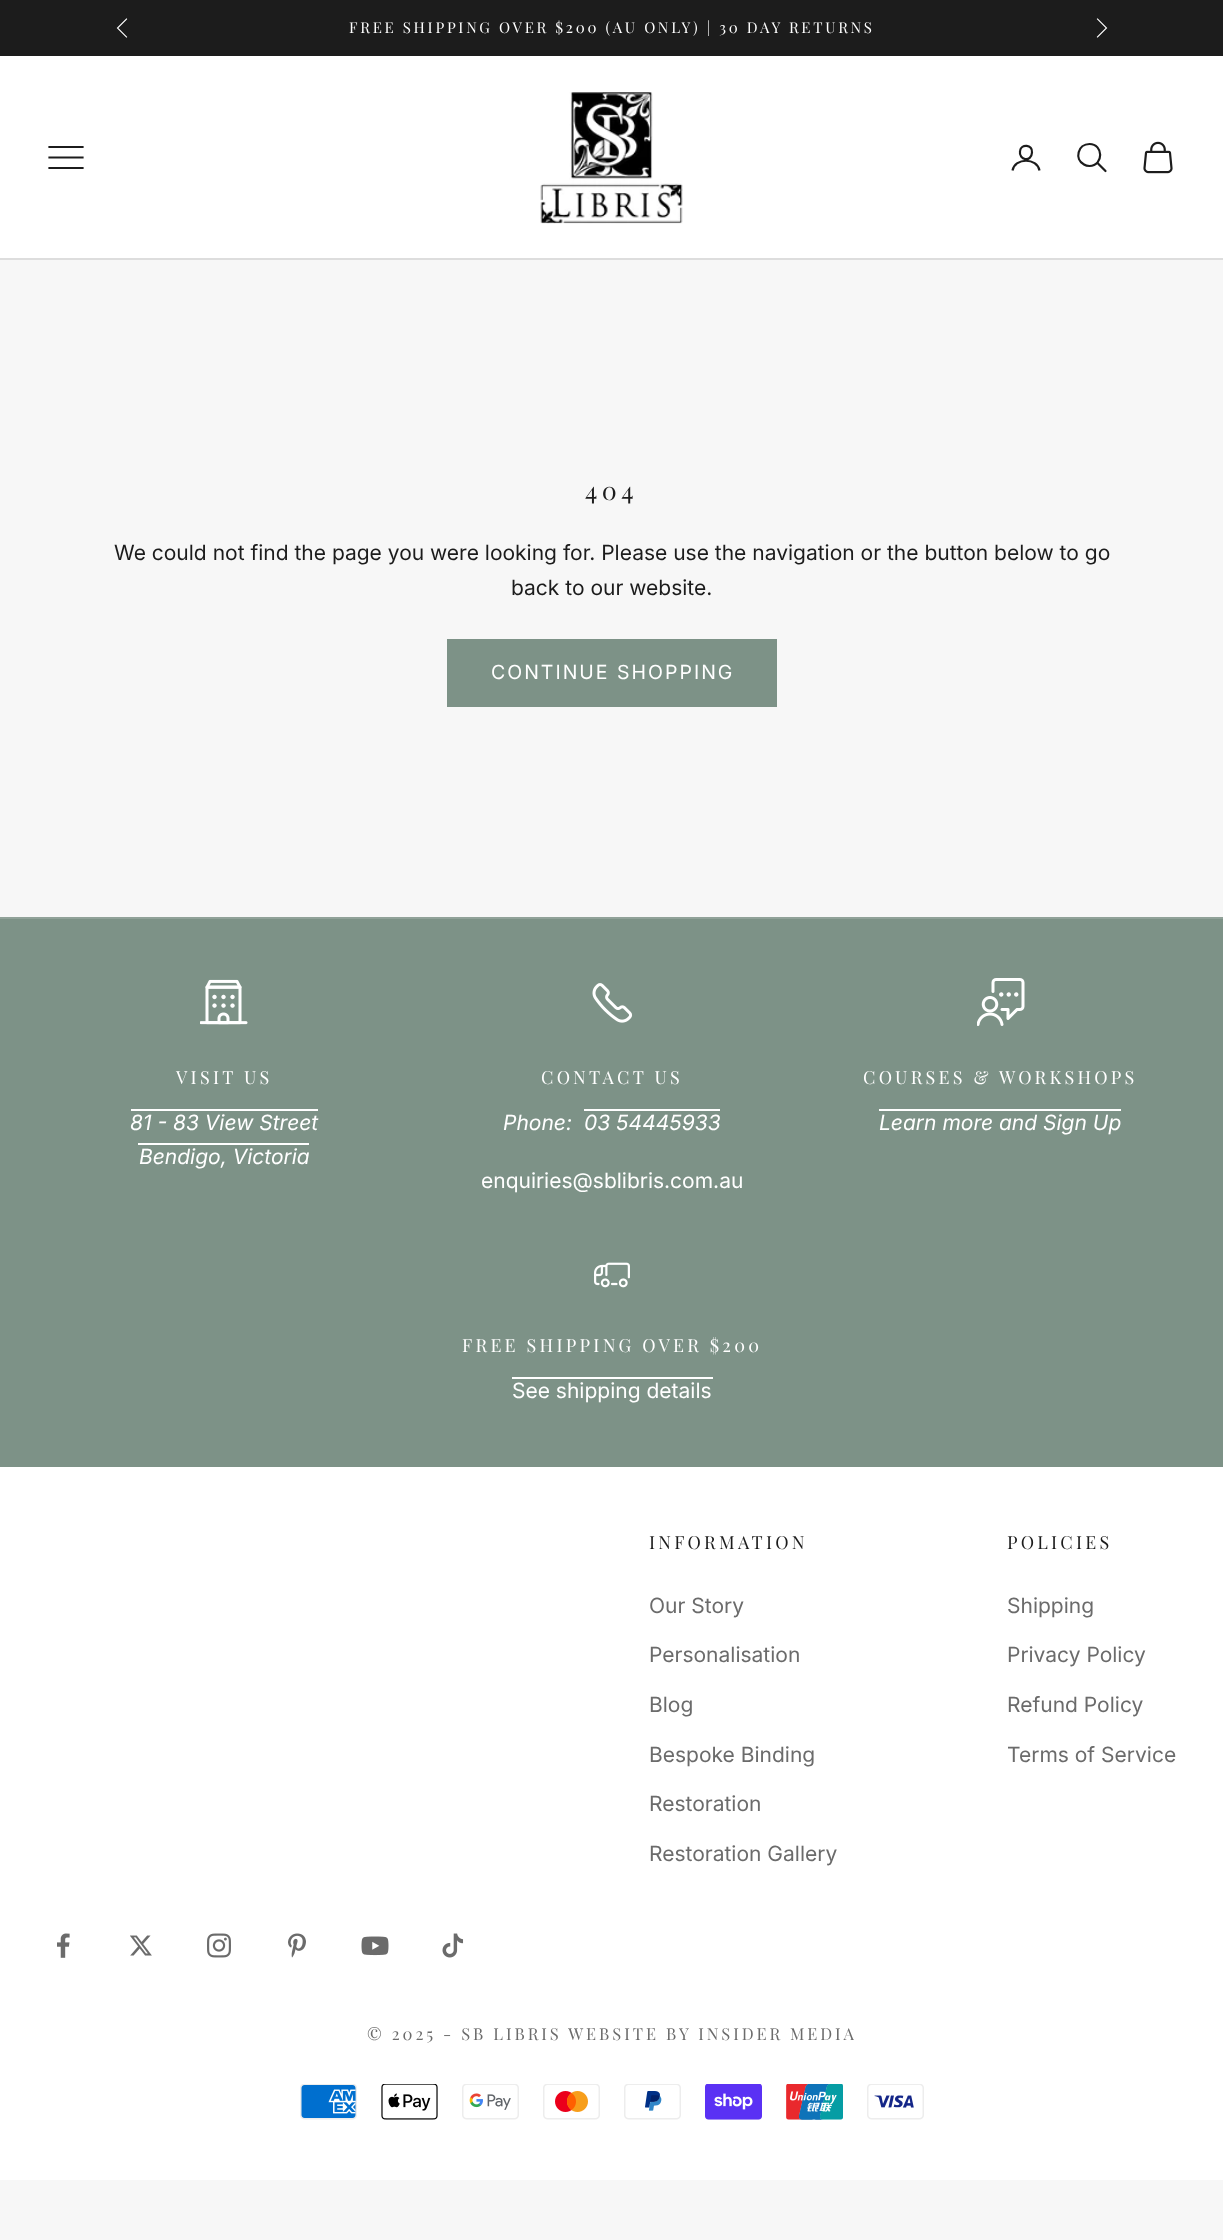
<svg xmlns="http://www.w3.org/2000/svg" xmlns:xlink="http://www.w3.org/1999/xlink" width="1223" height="2240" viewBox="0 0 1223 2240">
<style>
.cls-1{font:15px Playfair Display;letter-spacing:2.7px;fill:#ffffff}
.cls-2{font:25px Playfair Display;letter-spacing:4.5px;fill:#1c1c1c}
.cls-3{font:21px Inter;fill:#1c1c1c}
.cls-4{font:19.5px Inter;letter-spacing:2px;fill:#ffffff}
.cls-5{font:18px Playfair Display;letter-spacing:3.25px;fill:#ffffff}
.cls-6{font:italic 21px Inter;fill:#ffffff}
.cls-7{font:21px Inter;fill:#ffffff}
.cls-8{font:18px Playfair Display;letter-spacing:3.25px;fill:#1c1c1c}
.cls-9{font:21px Inter;fill:#6b6b6b}
.cls-10{font:16.5px Playfair Display;letter-spacing:2.95px;fill:#6b6b6b}
</style>
<rect width="100%" height="100%" fill="#f7f7f7"/>
<rect fill="#1c1c1c" x="0" y="0" width="1223" height="56"/>
<path fill="none" stroke="#ffffff" stroke-width="1.1" stroke-linecap="square" d="M126.5 19L117.5 28L126.5 37"/>
<path fill="none" stroke="#ffffff" stroke-width="1.1" stroke-linecap="square" d="M1097.5 37L1106.5 28L1097.5 19"/>
<rect fill="#ffffff" x="0" y="56" width="1223" height="202"/>
<rect fill="#dddddd" x="0" y="258" width="1223" height="2"/>
<path fill="none" stroke="#1c1c1c" stroke-width="2.2" stroke-linecap="square" d="M49.5 168H82.5M49.5 157.5H82.5M49.5 147H82.5"/>
<image xlink:href="image0.png" x="540" y="92" width="143" height="132"/>
<path fill="none" stroke="#1c1c1c" stroke-width="2.2" stroke-linecap="round" stroke-linejoin="round" d="M1032 152.5C1031.5 162.5 1018.5 160.5 1020 151C1021 143.5 1033 144.5 1032 152.5Z"/>
<path fill="none" stroke="#1c1c1c" stroke-width="2.2" d="M1012.5 170.5C1015 157.5 1037 157.5 1039.5 170.5"/>
<path fill="none" stroke="#1c1c1c" stroke-width="2.2" d="M1089.5 144C1078 144 1074 159 1084 164.5C1085.5 165.5 1087.5 166 1089.5 166C1104 165.5 1103.5 144 1089.5 144Z"/>
<path fill="none" stroke="#1c1c1c" stroke-width="2.2" stroke-linecap="round" d="M1098 163.5L1105.5 171"/>
<image xlink:href="image1.png" x="1143" y="141" width="30" height="33"/>
<rect fill="#7d9287" stroke="#7d9287" stroke-width="2" x="448" y="640" width="328" height="66"/>
<rect fill="#7d9287" x="0" y="919" width="1223" height="548"/>
<rect fill="#91a299" x="0" y="917" width="1223" height="2"/>
<image xlink:href="image2.png" x="200" y="979" width="48" height="46"/>
<rect fill="#ffffff" x="131" y="1109" width="187" height="2"/>
<rect fill="#ffffff" x="138" y="1143" width="171" height="2"/>
<image xlink:href="image3.png" x="592" y="983" width="41" height="40"/>
<rect fill="#ffffff" x="584" y="1109" width="136" height="2"/>
<image xlink:href="image4.png" x="977" y="978" width="48" height="48"/>
<rect fill="#ffffff" x="879" y="1109" width="242" height="2"/>
<image xlink:href="image5.png" x="594" y="1262" width="36" height="26"/>
<rect fill="#ffffff" x="512" y="1377" width="201" height="2"/>
<rect fill="#ffffff" x="0" y="1467" width="1223" height="713"/>
<image xlink:href="image6.png" x="57" y="1933" width="13" height="25"/>
<image xlink:href="image7.png" x="130" y="1935" width="22" height="21"/>
<image xlink:href="image8.png" x="207" y="1933" width="24" height="25"/>
<image xlink:href="image9.png" x="288" y="1933" width="18" height="25"/>
<image xlink:href="image10.png" x="361" y="1936" width="28" height="20"/>
<image xlink:href="image11.png" x="442" y="1933" width="22" height="25"/>
<image xlink:href="image12.png" x="300" y="2084" width="57" height="36"/>
<image xlink:href="image13.png" x="381" y="2084" width="57" height="36"/>
<image xlink:href="image14.png" x="462" y="2084" width="57" height="36"/>
<image xlink:href="image15.png" x="543" y="2084" width="57" height="36"/>
<image xlink:href="image16.png" x="624" y="2084" width="57" height="36"/>
<image xlink:href="image17.png" x="705" y="2084" width="57" height="36"/>
<image xlink:href="image18.png" x="786" y="2084" width="57" height="36"/>
<image xlink:href="image19.png" x="867" y="2084" width="57" height="36"/>
<text class="cls-1" x="349" y="33">FREE SHIPPING OVER $200 (AU ONLY) | 30 DAY RETURNS</text>
<text class="cls-2" x="585" y="500">404</text>
<text class="cls-3" x="114" y="560">We could not find the page you were looking for. Please use the navigation or the button below to go</text>
<text class="cls-3" x="511" y="595">back to our website.</text>
<text class="cls-4" x="491" y="679">CONTINUE SHOPPING</text>
<text class="cls-5" x="176" y="1084">VISIT US</text>
<text class="cls-6" x="130" y="1130">81 - 83 View Street</text>
<text class="cls-6" x="139" y="1164">Bendigo, Victoria</text>
<text class="cls-5" x="541" y="1084">CONTACT US</text>
<text class="cls-6" x="503" y="1130">Phone:</text>
<text class="cls-6" x="584" y="1130">03 54445933</text>
<text class="cls-7" x="481" y="1188">enquiries@sblibris.com.au</text>
<text class="cls-5" x="863" y="1084">COURSES &amp; WORKSHOPS</text>
<text class="cls-6" x="879" y="1130">Learn more and Sign Up</text>
<text class="cls-5" x="462" y="1352">FREE SHIPPING OVER $200</text>
<text class="cls-7" x="512" y="1398">See shipping details</text>
<text class="cls-8" x="649" y="1549">INFORMATION</text>
<text class="cls-9" x="649" y="1613">Our Story</text>
<text class="cls-9" x="649" y="1662">Personalisation</text>
<text class="cls-9" x="649" y="1712">Blog</text>
<text class="cls-9" x="649" y="1762">Bespoke Binding</text>
<text class="cls-9" x="649" y="1811">Restoration</text>
<text class="cls-9" x="649" y="1861">Restoration Gallery</text>
<text class="cls-8" x="1007" y="1549">POLICIES</text>
<text class="cls-9" x="1007" y="1613">Shipping</text>
<text class="cls-9" x="1007" y="1662">Privacy Policy</text>
<text class="cls-9" x="1007" y="1712">Refund Policy</text>
<text class="cls-9" x="1007" y="1762">Terms of Service</text>
<text class="cls-10" x="367" y="2040">© 2025 - SB LIBRIS WEBSITE BY INSIDER MEDIA</text>
</svg>
